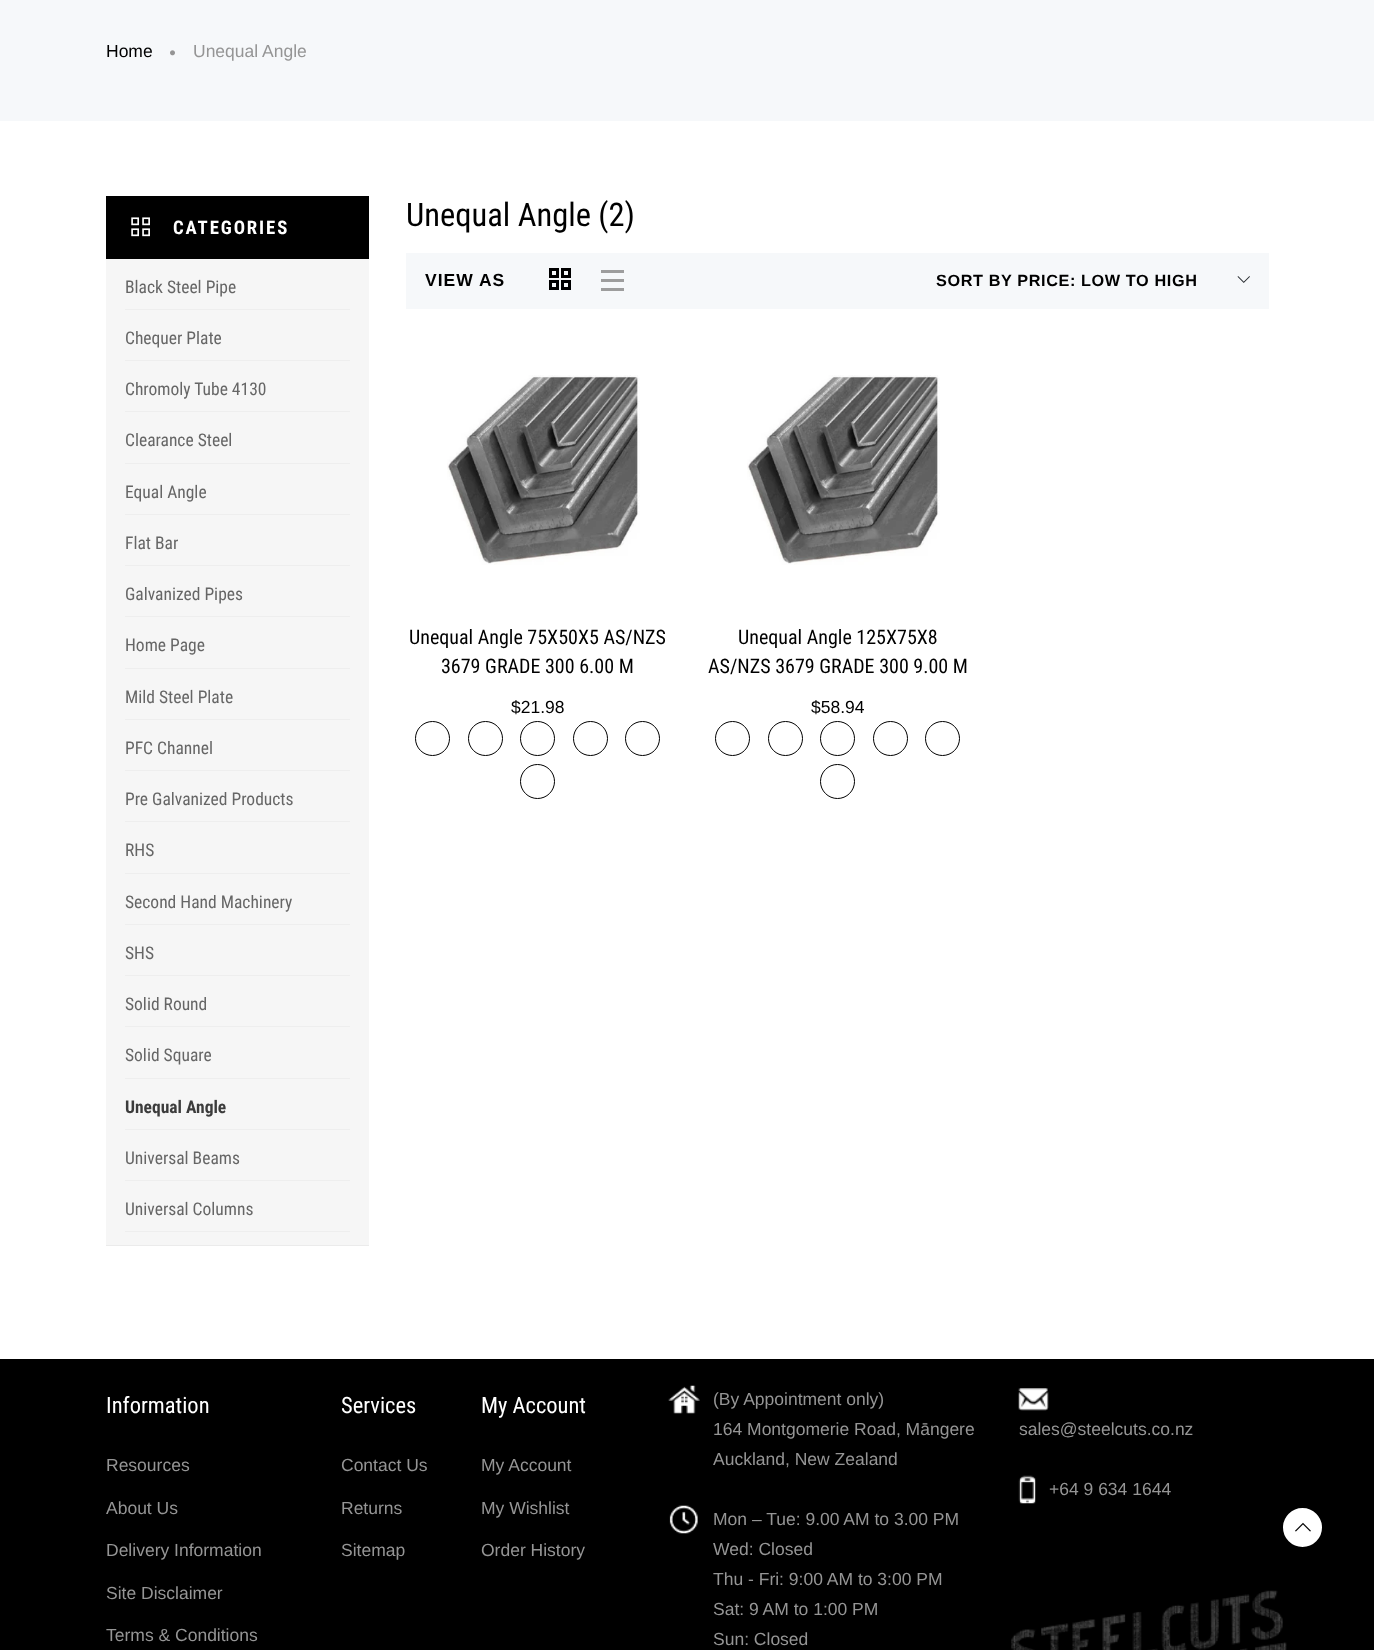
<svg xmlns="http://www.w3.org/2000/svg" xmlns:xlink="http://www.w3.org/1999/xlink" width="1374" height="1650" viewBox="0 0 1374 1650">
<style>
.cls-1{font:17.5px Liberation Sans;fill:#000000}
.cls-2{font:17.5px Liberation Sans;fill:#959595}
.cls-3{font:bold 18.75px Roboto Condensed;letter-spacing:1.9px;fill:#ffffff}
.cls-4{font:17.5px Roboto Condensed;fill:#666666}
.cls-5{font:bold 17.5px Roboto Condensed;fill:#3c3c3c}
.cls-6{font:32.5px Roboto Condensed;fill:#000000}
.cls-7{font:bold 17.5px Liberation Sans;letter-spacing:1px;fill:#000000}
.cls-8{font:bold 16.25px Liberation Sans;letter-spacing:0.6px;fill:#000000}
.cls-9{font:20px Roboto Condensed;fill:#000000}
.cls-10{font:22.5px Roboto Condensed;fill:#ffffff}
</style>
<rect width="100%" height="100%" fill="#ffffff"/>
<rect fill="#f6f8fa" x="0" y="0" width="1374" height="121"/>
<image xlink:href="image0.png" x="170" y="50" width="5" height="6"/>
<rect fill="#000000" x="106" y="196" width="263" height="63"/>
<image xlink:href="image1.png" x="131" y="217" width="19" height="20"/>
<rect fill="#f6f6f6" x="106" y="259" width="263" height="986"/>
<rect fill="#ebebeb" x="106" y="1245" width="263" height="1"/>
<rect fill="#eeeeee" x="125" y="309" width="225" height="1"/>
<rect fill="#eeeeee" x="125" y="360" width="225" height="1"/>
<rect fill="#eeeeee" x="125" y="411" width="225" height="1"/>
<rect fill="#eeeeee" x="125" y="463" width="225" height="1"/>
<rect fill="#eeeeee" x="125" y="514" width="225" height="1"/>
<rect fill="#eeeeee" x="125" y="565" width="225" height="1"/>
<rect fill="#eeeeee" x="125" y="616" width="225" height="1"/>
<rect fill="#eeeeee" x="125" y="668" width="225" height="1"/>
<rect fill="#eeeeee" x="125" y="719" width="225" height="1"/>
<rect fill="#eeeeee" x="125" y="770" width="225" height="1"/>
<rect fill="#eeeeee" x="125" y="821" width="225" height="1"/>
<rect fill="#eeeeee" x="125" y="873" width="225" height="1"/>
<rect fill="#eeeeee" x="125" y="924" width="225" height="1"/>
<rect fill="#eeeeee" x="125" y="975" width="225" height="1"/>
<rect fill="#eeeeee" x="125" y="1026" width="225" height="1"/>
<rect fill="#eeeeee" x="125" y="1078" width="225" height="1"/>
<rect fill="#eeeeee" x="125" y="1129" width="225" height="1"/>
<rect fill="#eeeeee" x="125" y="1180" width="225" height="1"/>
<rect fill="#eeeeee" x="125" y="1231" width="225" height="1"/>
<rect fill="#f6f8fa" x="406" y="253" width="863" height="56"/>
<rect fill="none" stroke="#000000" stroke-width="3" x="550.5" y="269.5" width="7" height="7"/>
<rect fill="none" stroke="#000000" stroke-width="3" x="562.5" y="269.5" width="7" height="7"/>
<rect fill="none" stroke="#000000" stroke-width="3" x="550.5" y="281.5" width="7" height="7"/>
<rect fill="none" stroke="#000000" stroke-width="3" x="562.5" y="281.5" width="7" height="7"/>
<rect fill="#9d9d9d" x="601" y="279" width="23" height="3"/>
<rect fill="#9d9d9d" x="601" y="270" width="23" height="3"/>
<rect fill="#9d9d9d" x="601" y="288" width="23" height="3"/>
<image xlink:href="image2.png" x="1237" y="276" width="13" height="7"/>
<image xlink:href="image3.png" x="447" y="375" width="193" height="190"/>
<circle fill="none" stroke="#000000" cx="432.5" cy="738.5" r="17"/>
<circle fill="none" stroke="#000000" cx="485.5" cy="738.5" r="17"/>
<circle fill="none" stroke="#000000" cx="537.5" cy="738.5" r="17"/>
<circle fill="none" stroke="#000000" cx="590.5" cy="738.5" r="17"/>
<circle fill="none" stroke="#000000" cx="642.5" cy="738.5" r="17"/>
<circle fill="none" stroke="#000000" cx="537.5" cy="781.5" r="17"/>
<image xlink:href="image3.png" x="747" y="375" width="193" height="190"/>
<circle fill="none" stroke="#000000" cx="732.5" cy="738.5" r="17"/>
<circle fill="none" stroke="#000000" cx="785.5" cy="738.5" r="17"/>
<circle fill="none" stroke="#000000" cx="837.5" cy="738.5" r="17"/>
<circle fill="none" stroke="#000000" cx="890.5" cy="738.5" r="17"/>
<circle fill="none" stroke="#000000" cx="942.5" cy="738.5" r="17"/>
<circle fill="none" stroke="#000000" cx="837.5" cy="781.5" r="17"/>
<rect fill="#000000" x="0" y="1359" width="1374" height="291"/>
<image xlink:href="image4.png" x="1011" y="1590" width="276" height="60"/>
<image xlink:href="image5.png" x="668" y="1385" width="32" height="29"/>
<image xlink:href="image6.png" x="669" y="1505" width="29" height="29"/>
<image xlink:href="image7.png" x="1018" y="1388" width="31" height="23"/>
<image xlink:href="image8.png" x="1018" y="1475" width="18" height="29"/>
<circle fill="#ffffff" stroke="#000000" stroke-width="3" cx="1302.5" cy="1527.5" r="21"/>
<image xlink:href="image9.png" x="1295" y="1522" width="16" height="10"/>
<text class="cls-1" x="106" y="57">Home</text>
<text class="cls-2" x="193" y="57">Unequal Angle</text>
<text class="cls-3" x="173" y="234">CATEGORIES</text>
<text class="cls-4" x="125" y="293">Black Steel Pipe</text>
<text class="cls-4" x="125" y="344">Chequer Plate</text>
<text class="cls-4" x="125" y="395">Chromoly Tube 4130</text>
<text class="cls-4" x="125" y="446">Clearance Steel</text>
<text class="cls-4" x="125" y="498">Equal Angle</text>
<text class="cls-4" x="125" y="549">Flat Bar</text>
<text class="cls-4" x="125" y="600">Galvanized Pipes</text>
<text class="cls-4" x="125" y="651">Home Page</text>
<text class="cls-4" x="125" y="703">Mild Steel Plate</text>
<text class="cls-4" x="125" y="754">PFC Channel</text>
<text class="cls-4" x="125" y="805">Pre Galvanized Products</text>
<text class="cls-4" x="125" y="856">RHS</text>
<text class="cls-4" x="125" y="908">Second Hand Machinery</text>
<text class="cls-4" x="125" y="959">SHS</text>
<text class="cls-4" x="125" y="1010">Solid Round</text>
<text class="cls-4" x="125" y="1061">Solid Square</text>
<text class="cls-5" x="125" y="1113">Unequal Angle</text>
<text class="cls-4" x="125" y="1164">Universal Beams</text>
<text class="cls-4" x="125" y="1215">Universal Columns</text>
<text class="cls-6" x="406" y="226">Unequal Angle (2)</text>
<text class="cls-7" x="425" y="286">VIEW AS</text>
<text class="cls-8" x="936" y="286">SORT BY PRICE: LOW TO HIGH</text>
<text class="cls-9" x="409" y="644">Unequal Angle 75X50X5 AS/NZS</text>
<text class="cls-9" x="441" y="673">3679 GRADE 300 6.00 M</text>
<text class="cls-1" x="511" y="713">$21.98</text>
<text class="cls-9" x="738" y="644">Unequal Angle 125X75X8</text>
<text class="cls-9" x="708" y="673">AS/NZS 3679 GRADE 300 9.00 M</text>
<text class="cls-1" x="811" y="713">$58.94</text>
<text class="cls-10" x="106" y="1413">Information</text>
<text class="cls-2" x="106" y="1471">Resources</text>
<text class="cls-2" x="106" y="1514">About Us</text>
<text class="cls-2" x="106" y="1556">Delivery Information</text>
<text class="cls-2" x="106" y="1599">Site Disclaimer</text>
<text class="cls-2" x="106" y="1641">Terms &amp; Conditions</text>
<text class="cls-10" x="341" y="1413">Services</text>
<text class="cls-2" x="341" y="1471">Contact Us</text>
<text class="cls-2" x="341" y="1514">Returns</text>
<text class="cls-2" x="341" y="1556">Sitemap</text>
<text class="cls-10" x="481" y="1413">My Account</text>
<text class="cls-2" x="481" y="1471">My Account</text>
<text class="cls-2" x="481" y="1514">My Wishlist</text>
<text class="cls-2" x="481" y="1556">Order History</text>
<text class="cls-2"><tspan x="713" y="1405">(By Appointment only)</tspan><tspan x="713" y="1435">164 Montgomerie Road, Māngere</tspan><tspan x="713" y="1465">Auckland, New Zealand</tspan></text>
<text class="cls-2"><tspan x="713" y="1525">Mon – Tue: 9.00 AM to 3.00 PM</tspan><tspan x="713" y="1555">Wed: Closed</tspan><tspan x="713" y="1585">Thu - Fri: 9:00 AM to 3:00 PM</tspan><tspan x="713" y="1615">Sat: 9 AM to 1:00 PM</tspan><tspan x="713" y="1645">Sun: Closed</tspan></text>
<text class="cls-2" x="1019" y="1435">sales@steelcuts.co.nz</text>
<text class="cls-2" x="1049" y="1495">+64 9 634 1644</text>
</svg>
